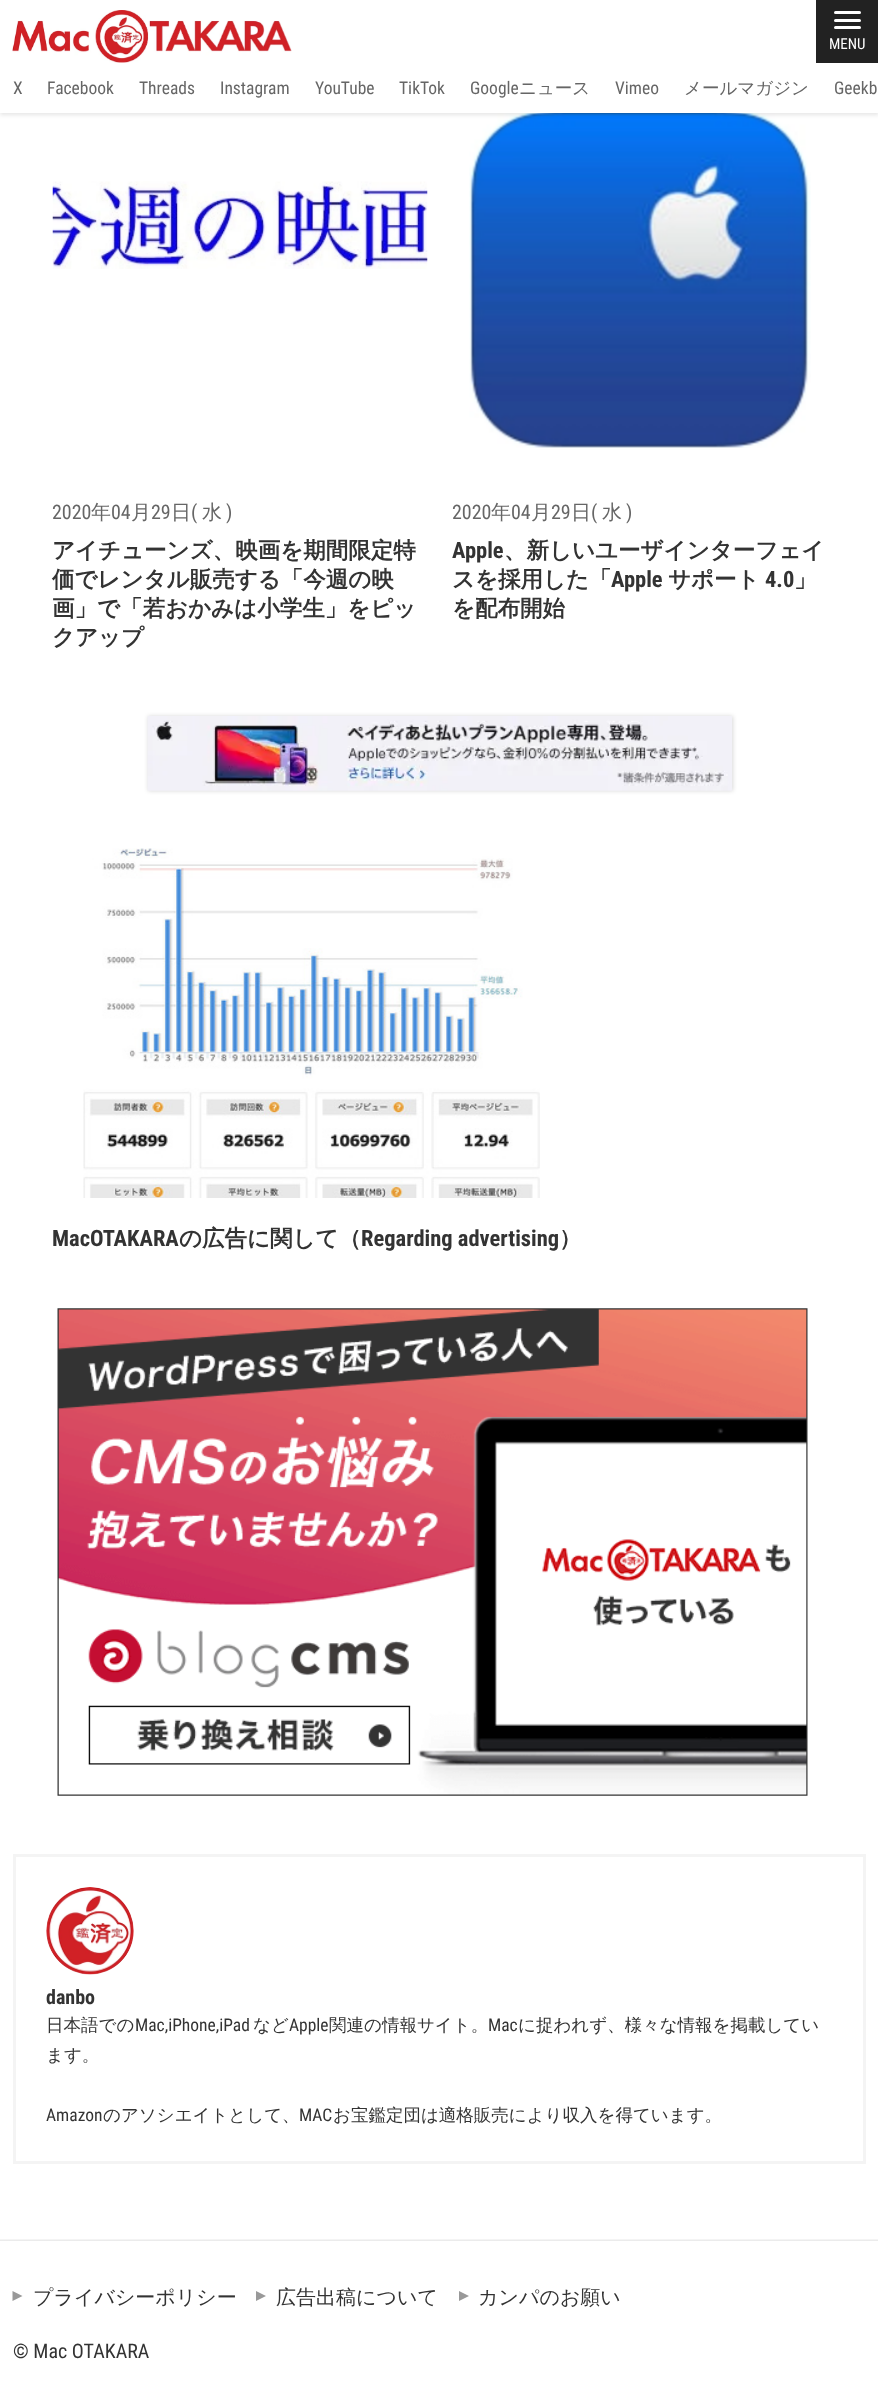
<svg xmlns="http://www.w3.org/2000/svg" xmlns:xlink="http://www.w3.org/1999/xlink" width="878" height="2393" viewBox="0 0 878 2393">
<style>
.cls-1{font:15px Roboto Condensed;fill:#ffffff}
.cls-2{font:17.5px Roboto Condensed;fill:#666666}
.cls-3{font:500 17.5px WenQuanYi Zen Hei;fill:#666666}
.cls-4{font:20px Roboto Condensed;fill:#666666}
.cls-5{font:500 20px WenQuanYi Zen Hei;fill:#666666}
.cls-6{font:bold 22.5px WenQuanYi Zen Hei;fill:#333333}
.cls-7{font:bold 22.5px Roboto Condensed;fill:#333333}
.cls-8{font:bold 20px Roboto Condensed;fill:#333333}
.cls-9{font:500 17.5px WenQuanYi Zen Hei;fill:#333333}
.cls-10{font:17.5px Roboto Condensed;fill:#333333}
.cls-11{font:500 20px WenQuanYi Zen Hei;fill:#333333}
.cls-12{font:20px Roboto Condensed;fill:#333333}
</style>
<rect width="100%" height="100%" fill="#ffffff"/>
<image xlink:href="image2.png" x="469" y="113" width="342" height="335"/>
<rect fill="#000000" fill-opacity="0.1" filter="blur(2px)" x="0" y="3" width="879" height="112"/>
<rect fill="#ffffff" x="0" y="0" width="878" height="113"/>
<image xlink:href="image0.png" x="12" y="10" width="280" height="53"/>
<rect fill="#222222" x="816" y="0" width="62" height="63"/>
<rect fill="#ffffff" x="834" y="19" width="27" height="3" rx="1.5"/>
<rect fill="#ffffff" x="834" y="11" width="27" height="3" rx="1.5"/>
<rect fill="#ffffff" x="834" y="26" width="27" height="3" rx="1.5"/>
<image xlink:href="image1.png" x="52" y="181" width="376" height="88"/>
<rect fill="#000000" fill-opacity="0.15" filter="blur(2px)" x="148" y="716" width="585" height="75"/>
<image xlink:href="image3.png" x="147" y="716" width="585" height="75"/>
<image xlink:href="image4.png" x="83" y="848" width="457" height="350"/>
<image xlink:href="image5.png" x="57" y="1308" width="751" height="488"/>
<rect fill="none" stroke="#f4f4f4" stroke-width="3" x="14.5" y="1855.5" width="850" height="307"/>
<image xlink:href="image6.png" x="46" y="1887" width="88" height="88"/>
<rect fill="#f4f4f4" x="0" y="2239" width="878" height="1"/>
<rect fill="#ebebeb" x="0" y="2240" width="878" height="1"/>
<path fill="#999999" d="M12.5 2301V2291L22.5 2296Z"/>
<path fill="#999999" d="M256 2301V2291L266 2296Z"/>
<path fill="#999999" d="M459 2301V2291L469 2296Z"/>
<text class="cls-1" x="829" y="49">MENU</text>
<text class="cls-2" x="13" y="94">X</text>
<text class="cls-2" x="47" y="94">Facebook</text>
<text class="cls-2" x="139" y="94">Threads</text>
<text class="cls-2" x="220" y="94">Instagram</text>
<text class="cls-2" x="315" y="94">YouTube</text>
<text class="cls-2" x="399" y="94">TikTok</text>
<text class="cls-2" x="470" y="94">Google</text>
<text class="cls-3" x="519" y="94">ニュース</text>
<text class="cls-2" x="615" y="94">Vimeo</text>
<text class="cls-3" x="684" y="94">メールマガジン</text>
<text class="cls-2" x="834" y="94">Geekb</text>
<text class="cls-4" x="52" y="519">2020</text>
<text class="cls-5" x="91" y="519">年</text>
<text class="cls-4" x="111" y="519">04</text>
<text class="cls-5" x="131" y="519">月</text>
<text class="cls-4" x="151" y="519">29</text>
<text class="cls-5" x="171" y="519">日</text>
<text class="cls-4" x="191" y="519">(</text>
<text class="cls-5" x="202" y="519">水</text>
<text class="cls-4" x="226" y="519">)</text>
<text class="cls-6"><tspan x="52" y="558">アイチューンズ、映画を期間限定特</tspan><tspan x="52" y="587">価でレンタル販売する「今週の映</tspan><tspan x="52" y="616">画」で「若おかみは小学生」をピッ</tspan><tspan x="52" y="645">クアップ</tspan></text>
<text class="cls-4" x="452" y="519">2020</text>
<text class="cls-5" x="491" y="519">年</text>
<text class="cls-4" x="511" y="519">04</text>
<text class="cls-5" x="531" y="519">月</text>
<text class="cls-4" x="551" y="519">29</text>
<text class="cls-5" x="571" y="519">日</text>
<text class="cls-4" x="591" y="519">(</text>
<text class="cls-5" x="602" y="519">水</text>
<text class="cls-4" x="626" y="519">)</text>
<text class="cls-7" x="452" y="558">Apple</text>
<text class="cls-6" x="504" y="558">、新しいユーザインターフェイ</text>
<text class="cls-6" x="452" y="587">スを採用した「</text>
<text class="cls-7" x="611" y="587">Apple</text>
<text class="cls-6" x="668" y="587">サポート</text>
<text class="cls-7" x="765" y="587">4.0</text>
<text class="cls-6" x="794" y="587">」</text>
<text class="cls-6" x="452" y="616">を配布開始</text>
<text class="cls-7" x="52" y="1246">MacOTAKARA</text>
<text class="cls-6" x="179" y="1246">の広告に関して（</text>
<text class="cls-7" x="361" y="1246">Regarding advertising</text>
<text class="cls-6" x="559" y="1246">）</text>
<text class="cls-8" x="46" y="2004">danbo</text>
<text class="cls-9" x="46" y="2031">日本語での</text>
<text class="cls-10" x="135" y="2031">Mac,iPhone,iPad</text>
<text class="cls-9" x="253" y="2031">など</text>
<text class="cls-10" x="289" y="2031">Apple</text>
<text class="cls-9" x="329" y="2031">関連の情報サイト。</text>
<text class="cls-10" x="488" y="2031">Mac</text>
<text class="cls-9" x="518" y="2031">に捉われず、様々な情報を掲載してい</text>
<text class="cls-9" x="46" y="2061">ます。</text>
<text class="cls-10" x="46" y="2121">Amazon</text>
<text class="cls-9" x="103" y="2121">のアソシエイトとして、</text>
<text class="cls-10" x="299" y="2121">MAC</text>
<text class="cls-9" x="333" y="2121">お宝鑑定団は適格販売により収入を得ています。</text>
<text class="cls-11" x="33" y="2304">プライバシーポリシー</text>
<text class="cls-11" x="276" y="2304">広告出稿について</text>
<text class="cls-11" x="478" y="2304">カンパのお願い</text>
<text class="cls-12" x="13" y="2358">© Mac OTAKARA</text>
</svg>
